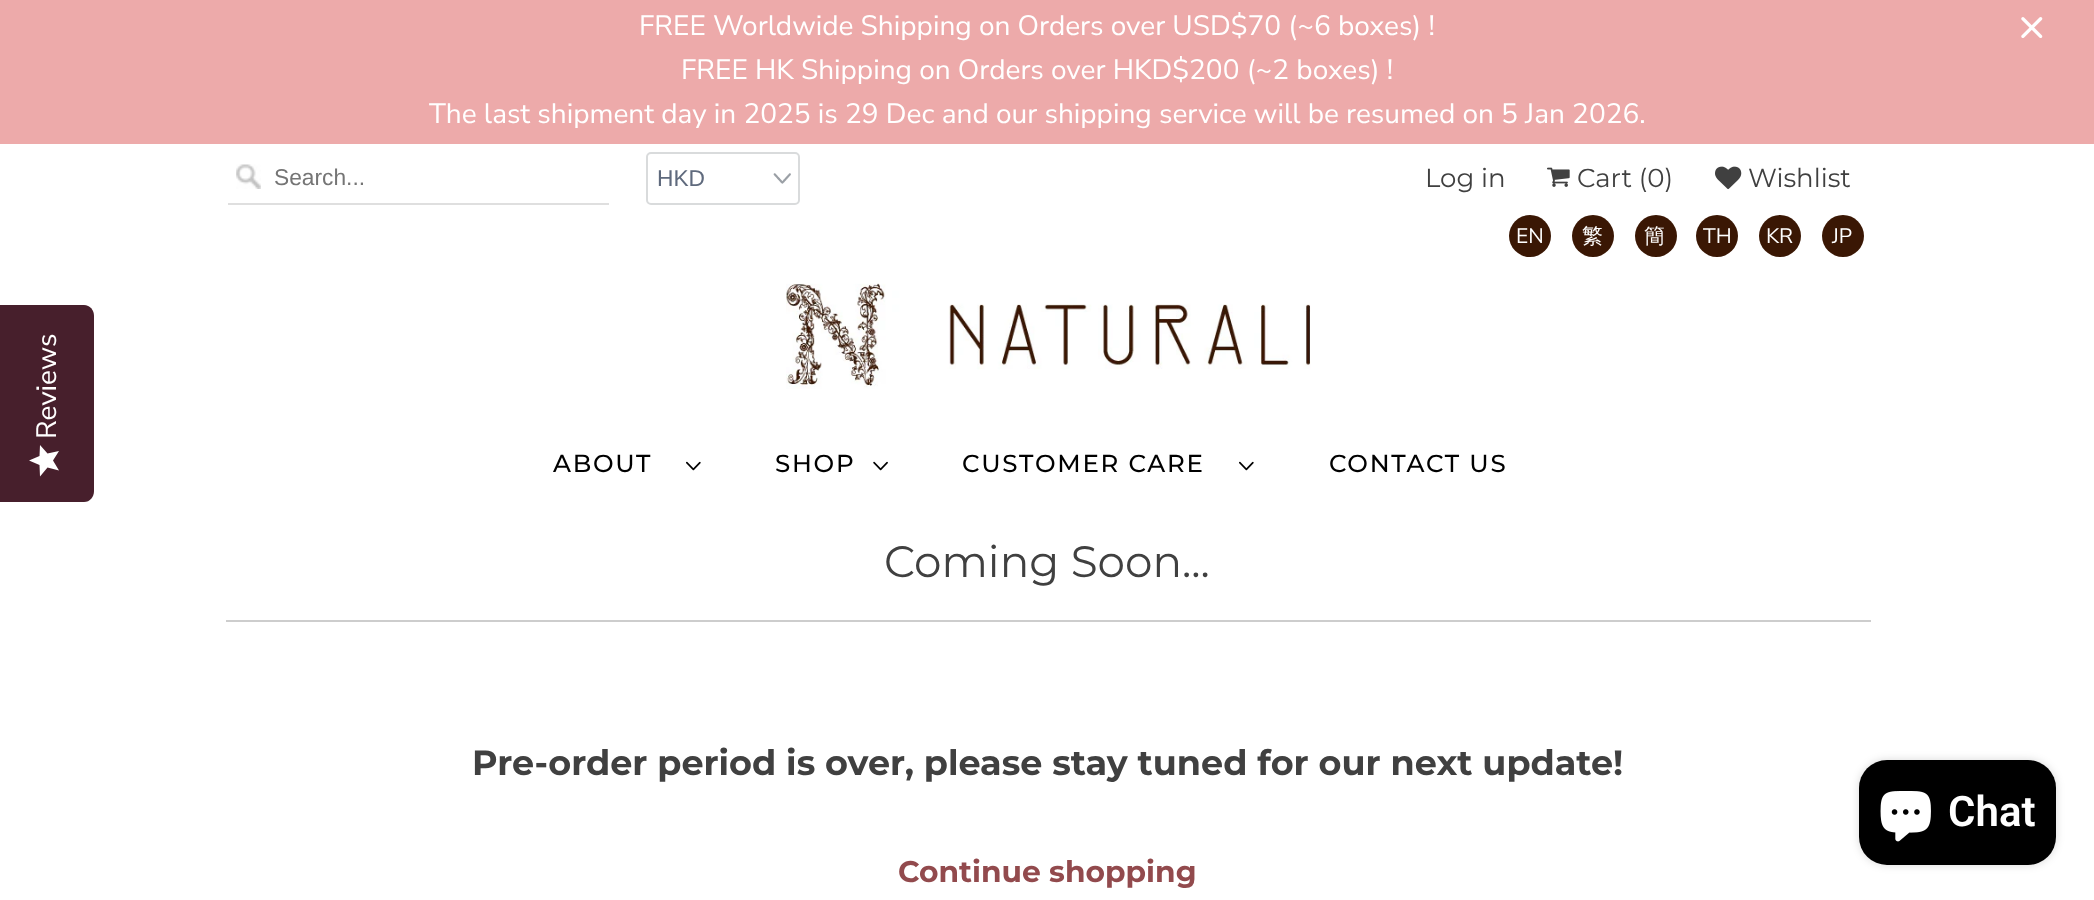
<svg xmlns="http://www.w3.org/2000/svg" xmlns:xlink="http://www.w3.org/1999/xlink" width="2094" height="900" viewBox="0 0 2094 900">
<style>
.cls-1{font:28px Nunito Sans;fill:#ffffff}
.cls-2{font:22.75px Liberation Sans;fill:#757575}
.cls-3{font:22.75px Liberation Sans;fill:#5f6a7d}
.cls-4{font:26px Montserrat;fill:#404040}
.cls-5{font:21px Nunito Sans;fill:#ffffff}
.cls-6{font:500 21px WenQuanYi Zen Hei;fill:#ffffff}
.cls-7{font:500 24.5px Montserrat;letter-spacing:1.75px;fill:#000000}
.cls-8{font:43.75px Montserrat;fill:#404040}
.cls-9{font:bold 35px Montserrat;fill:#404040}
.cls-10{font:bold 29.75px Montserrat;fill:#924a4d}
.cls-11{font:600 42px Roboto;fill:#ffffff}
</style>
<defs>
<linearGradient id="g1" gradientUnits="userSpaceOnUse" x1="29" y1="476" x2="29" y2="445"><stop offset="1" stop-color="#ffffff"/><stop offset="1" stop-color="#eaeaea"/></linearGradient>
</defs>
<rect width="100%" height="100%" fill="#ffffff"/>
<path fill="#471f2c" d="M0 502V305H84C90 305 94 310 94 316V491C94 497 90 502 84 502Z"/>
<path fill="url(#g1)" d="M53 460.5L59 451L47.5 453.5L40 445L39.5 456L29 460.5L39.5 465L40 476.5L47.5 467.5L59 470.5Z"/>
<rect fill="#edaaaa" x="0" y="0" width="2094" height="144"/>
<image xlink:href="image0.png" x="2021" y="17" width="22" height="21"/>
<image xlink:href="image1.png" x="236" y="164" width="25" height="25"/>
<rect fill="#dfdfdf" x="228" y="203" width="381" height="2"/>
<image xlink:href="image2.png" x="773" y="173" width="18" height="11"/>
<rect fill="none" stroke="#d9dbdc" stroke-width="2" x="647" y="153" width="152" height="51" rx="4"/>
<image xlink:href="image3.png" x="1547" y="167" width="23" height="20"/>
<image xlink:href="image4.png" x="1715" y="166" width="27" height="24"/>
<circle fill="#3a1704" cx="1530" cy="236" r="21"/>
<circle fill="#3a1704" cx="1593" cy="236" r="21"/>
<circle fill="#3a1704" cx="1656" cy="236" r="21"/>
<circle fill="#3a1704" cx="1717" cy="236" r="21"/>
<circle fill="#3a1704" cx="1780" cy="236" r="21"/>
<circle fill="#3a1704" cx="1843" cy="236" r="21"/>
<image xlink:href="image5.png" x="786" y="283" width="525" height="106"/>
<image xlink:href="image6.png" x="686" y="461" width="15" height="10"/>
<image xlink:href="image7.png" x="873" y="461" width="15" height="10"/>
<image xlink:href="image6.png" x="1239" y="461" width="15" height="10"/>
<rect fill="#cdcdcd" x="226" y="620" width="1645" height="2"/>
<rect fill="#000000" fill-opacity="0.15" filter="blur(4.5px)" x="1859" y="760" width="197" height="105" rx="28"/>
<rect fill="#000000" x="1859" y="760" width="197" height="105" rx="28"/>
<image xlink:href="image8.png" x="1880" y="791" width="51" height="51"/>
<text class="cls-1" x="56" y="439" transform="rotate(-90 56 439)">Reviews</text>
<text class="cls-1" x="639" y="35">FREE Worldwide Shipping on Orders over USD$70 (~6 boxes) !</text>
<text class="cls-1" x="681" y="79">FREE HK Shipping on Orders over HKD$200 (~2 boxes) !</text>
<text class="cls-1" x="429" y="123">The last shipment day in 2025 is 29 Dec and our shipping service will be resumed on 5 Jan 2026.</text>
<text class="cls-2" x="274" y="185">Search...</text>
<text class="cls-3" x="657" y="186">HKD</text>
<text class="cls-4" x="1425" y="187">Log in</text>
<text class="cls-4" x="1577" y="187">Cart (0)</text>
<text class="cls-4" x="1748" y="187">Wishlist</text>
<text class="cls-5" x="1516" y="243">EN</text>
<text class="cls-6" x="1582" y="243">繁</text>
<text class="cls-6" x="1644" y="243">簡</text>
<text class="cls-5" x="1703" y="243">TH</text>
<text class="cls-5" x="1766" y="243">KR</text>
<text class="cls-5" x="1832" y="243">JP</text>
<text class="cls-7" x="553" y="472">ABOUT</text>
<text class="cls-7" x="775" y="472">SHOP</text>
<text class="cls-7" x="962" y="472">CUSTOMER CARE</text>
<text class="cls-7" x="1329" y="472">CONTACT US</text>
<text class="cls-8" x="884" y="577">Coming Soon...</text>
<text class="cls-9" x="472" y="775">Pre-order period is over, please stay tuned for our next update!</text>
<text class="cls-10" x="898" y="882">Continue shopping</text>
<text class="cls-11" x="1948" y="826">Chat</text>
</svg>
